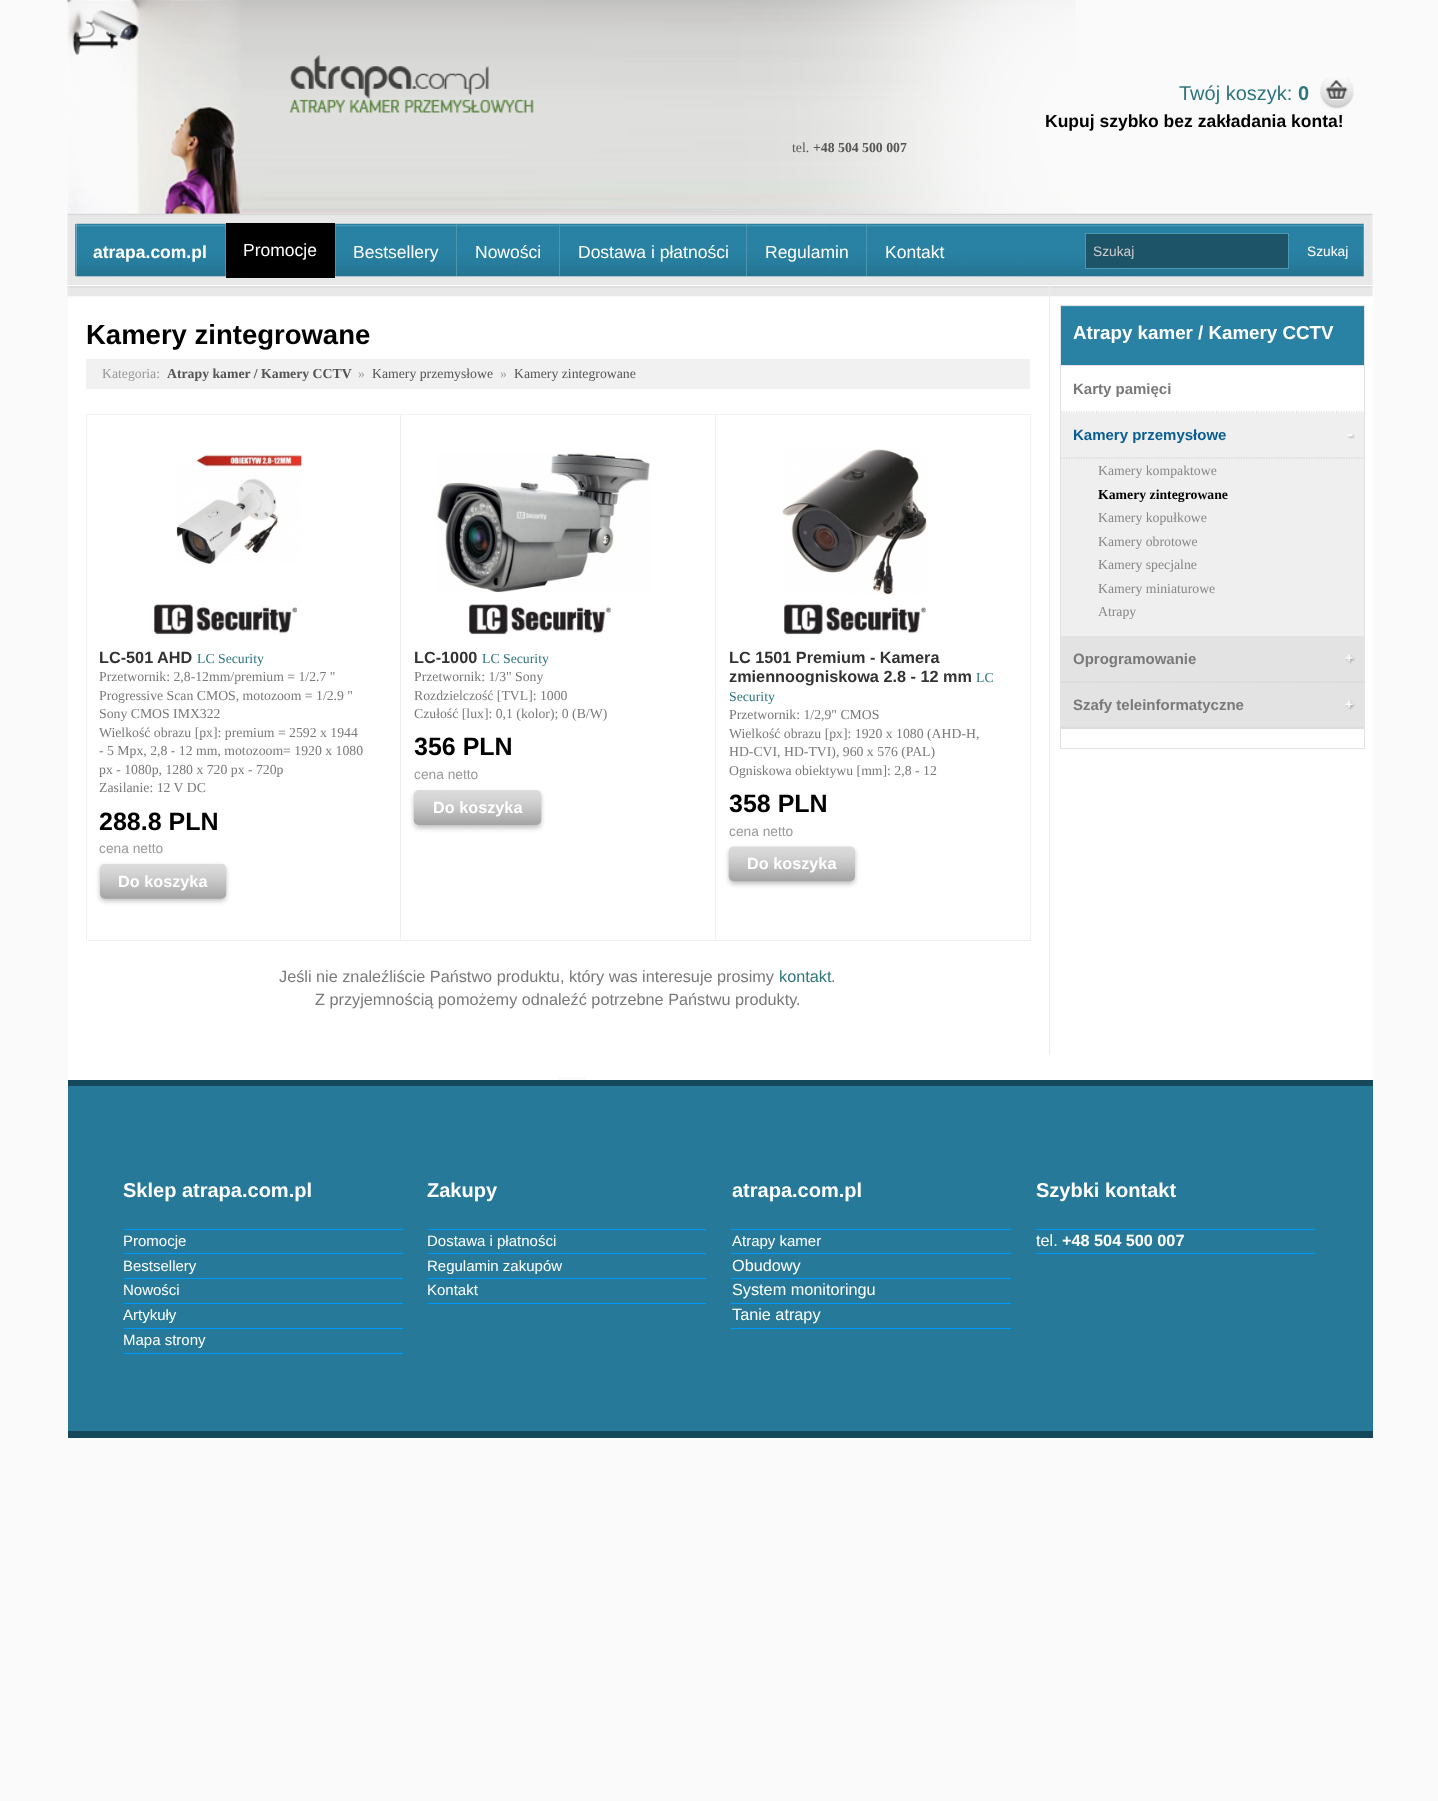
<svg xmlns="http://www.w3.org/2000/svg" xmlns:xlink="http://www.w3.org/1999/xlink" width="1438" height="1801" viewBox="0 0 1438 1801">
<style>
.cls-1{font:20px Liberation Sans;fill:#2e767c}
.cls-2{font:bold 20px Liberation Sans;fill:#2e767c}
.cls-3{font:bold 17.5px Liberation Sans;fill:#000000}
.cls-4{font:13.75px Liberation Serif;fill:#555555}
.cls-5{font:bold 13.75px Liberation Serif;fill:#555555}
.cls-6{font:bold 17.5px Liberation Sans;fill:#ffffff}
.cls-7{font:17.5px Liberation Sans;fill:#ffffff}
.cls-8{font:13.75px Liberation Sans;fill:#cccccc}
.cls-9{font:13.75px Liberation Sans;fill:#ffffff}
.cls-10{font:bold 27.5px Liberation Sans;fill:#000000}
.cls-11{font:13.75px Liberation Serif;fill:#999999}
.cls-12{font:bold 16.25px Liberation Sans;fill:#333333}
.cls-13{font:13.75px Liberation Serif;fill:#2e767c}
.cls-14{font:13.75px Liberation Serif;fill:#797979}
.cls-15{font:bold 25px Liberation Sans;fill:#000000}
.cls-16{font:13.75px Liberation Sans;fill:#999999}
.cls-17{font:bold 16.25px Liberation Sans;fill:#ffffff}
.cls-18{font:16.25px Liberation Sans;fill:#797979}
.cls-19{font:16.25px Liberation Sans;fill:#2e767c}
.cls-20{font:bold 18.75px Liberation Sans;fill:#ffffff}
.cls-21{font:bold 15px Liberation Sans;fill:#797979}
.cls-22{font:bold 15px Liberation Sans;fill:#0a5e91}
.cls-23{font:13.75px Liberation Serif;fill:#888888}
.cls-24{font:bold 13.75px Liberation Serif;fill:#000000}
.cls-25{font:bold 20px Liberation Sans;fill:#ffffff}
.cls-26{font:15px Liberation Sans;fill:#ffffff}
.cls-27{font:16.25px Liberation Sans;fill:#ffffff}
</style>
<rect width="100%" height="100%" fill="#fafafa"/>
<image xlink:href="image0.png" x="67" y="0" width="1009" height="214"/>
<image xlink:href="image1.png" x="289" y="55" width="245" height="58"/>
<image xlink:href="image2.png" x="1320" y="78" width="34" height="31"/>
<image xlink:href="image3.png" x="67" y="213" width="1306" height="72"/>
<rect fill="#ffffff" x="68" y="285" width="1305" height="795"/>
<rect fill="#4e96b0" x="75" y="224" width="1" height="52"/>
<rect fill="#4e96b0" x="225" y="224" width="1" height="52"/>
<rect fill="#000000" x="226" y="223" width="109" height="55"/>
<rect fill="#4e96b0" x="335" y="224" width="1" height="52"/>
<rect fill="#4e96b0" x="456" y="224" width="1" height="52"/>
<rect fill="#4e96b0" x="559" y="224" width="1" height="52"/>
<rect fill="#4e96b0" x="746" y="224" width="1" height="52"/>
<rect fill="#4e96b0" x="866" y="224" width="1" height="52"/>
<rect fill="#1e5468" stroke="#4f98b3" x="1085.5" y="233.5" width="203" height="35"/>
<image xlink:href="image4.png" x="67" y="286" width="1306" height="11"/>
<rect fill="#ececec" x="1049" y="286" width="1" height="769"/>
<rect fill="#f1f1f1" x="86" y="359" width="944" height="30"/>
<rect fill="#f0f0f0" x="86" y="414" width="945" height="1"/>
<rect fill="#f0f0f0" x="86" y="414" width="1" height="527"/>
<rect fill="#f0f0f0" x="400" y="415" width="1" height="526"/>
<rect fill="#f0f0f0" x="88" y="940" width="313" height="1"/>
<image xlink:href="image5.png" x="176" y="454" width="126" height="111"/>
<image xlink:href="image6.png" x="154" y="604" width="143" height="31"/>
<rect fill="#000000" fill-opacity="0.25" filter="blur(2.5px)" x="100" y="866" width="126" height="35" rx="5"/>
<image xlink:href="image7.png" x="100" y="864" width="127" height="35"/>
<rect fill="#f0f0f0" x="715" y="415" width="1" height="526"/>
<rect fill="#f0f0f0" x="401" y="940" width="315" height="1"/>
<image xlink:href="image8.png" x="436" y="453" width="214" height="140"/>
<image xlink:href="image9.png" x="469" y="604" width="142" height="31"/>
<rect fill="#000000" fill-opacity="0.25" filter="blur(2.5px)" x="414" y="793" width="127" height="35" rx="5"/>
<image xlink:href="image10.png" x="413" y="790" width="129" height="35"/>
<rect fill="#f0f0f0" x="1030" y="415" width="1" height="526"/>
<rect fill="#f0f0f0" x="716" y="940" width="315" height="1"/>
<image xlink:href="image11.png" x="782" y="449" width="146" height="147"/>
<image xlink:href="image9.png" x="784" y="604" width="142" height="31"/>
<rect fill="#000000" fill-opacity="0.25" filter="blur(2.5px)" x="729" y="849" width="126" height="35" rx="5"/>
<image xlink:href="image12.png" x="728" y="846" width="127" height="36"/>
<rect fill="none" stroke="#e3e3e3" x="1060.5" y="305.5" width="304" height="443"/>
<rect fill="#2982a3" x="1061" y="307" width="303" height="58"/>
<rect fill="#3e8fac" x="1061" y="306" width="303" height="1"/>
<rect fill="#e3e3e3" x="1061" y="365" width="303" height="1"/>
<path fill="none" stroke="#cccccc" stroke-width="1.2" stroke-dasharray="1.25 1.25" d="M1061 412H1364"/>
<rect fill="#efefef" x="1061" y="413" width="303" height="223"/>
<image xlink:href="image13.png" x="1347" y="434" width="8" height="5"/>
<path fill="none" stroke="#cccccc" stroke-width="1.2" stroke-dasharray="1.25 1.25" d="M1061 458H1364"/>
<rect fill="#e3e3e3" x="1061" y="636" width="303" height="93"/>
<image xlink:href="image14.png" x="1345" y="654" width="10" height="10"/>
<path fill="none" stroke="#cccccc" stroke-width="1.2" stroke-dasharray="1.25 1.25" d="M1061 682H1364"/>
<image xlink:href="image15.png" x="1345" y="700" width="10" height="10"/>
<path fill="none" stroke="#cccccc" stroke-width="1.2" stroke-dasharray="1.25 1.25" d="M1061 728H1364"/>
<rect fill="#fafafa" x="558" y="1077" width="28" height="3"/>
<rect fill="#267998" x="68" y="1086" width="1305" height="345"/>
<rect fill="#16485b" x="68" y="1080" width="1305" height="6"/>
<rect fill="#16485b" x="68" y="1431" width="1305" height="7"/>
<rect fill="#0099ff" x="124" y="1229" width="279" height="1"/>
<rect fill="#0099ff" x="124" y="1253" width="279" height="1"/>
<rect fill="#0099ff" x="124" y="1278" width="279" height="1"/>
<rect fill="#0099ff" x="124" y="1303" width="279" height="1"/>
<rect fill="#0099ff" x="124" y="1328" width="279" height="1"/>
<rect fill="#0099ff" x="124" y="1353" width="279" height="1"/>
<rect fill="#0099ff" x="428" y="1229" width="278" height="1"/>
<rect fill="#0099ff" x="428" y="1253" width="278" height="1"/>
<rect fill="#0099ff" x="428" y="1278" width="278" height="1"/>
<rect fill="#0099ff" x="428" y="1303" width="278" height="1"/>
<rect fill="#0099ff" x="731" y="1229" width="280" height="1"/>
<rect fill="#0099ff" x="731" y="1253" width="280" height="1"/>
<rect fill="#0099ff" x="731" y="1278" width="280" height="1"/>
<rect fill="#0099ff" x="731" y="1303" width="280" height="1"/>
<rect fill="#0099ff" x="731" y="1328" width="280" height="1"/>
<rect fill="#0099ff" x="1036" y="1229" width="279" height="1"/>
<rect fill="#0099ff" x="1036" y="1253" width="279" height="1"/>
<text class="cls-1" x="1179" y="100">Twój koszyk:</text>
<text class="cls-2" x="1298" y="100">0</text>
<text class="cls-3" x="1045" y="127">Kupuj szybko bez zakładania konta!</text>
<text class="cls-4" x="792" y="152">tel.</text>
<text class="cls-5" x="813" y="152">+48 504 500 007</text>
<text class="cls-6" x="93" y="258">atrapa.com.pl</text>
<text class="cls-7" x="243" y="256">Promocje</text>
<text class="cls-7" x="353" y="258">Bestsellery</text>
<text class="cls-7" x="475" y="258">Nowości</text>
<text class="cls-7" x="578" y="258">Dostawa i płatności</text>
<text class="cls-7" x="765" y="258">Regulamin</text>
<text class="cls-7" x="885" y="258">Kontakt</text>
<text class="cls-8" x="1093" y="256">Szukaj</text>
<text class="cls-9" x="1307" y="256">Szukaj</text>
<text class="cls-10" x="86" y="344">Kamery zintegrowane</text>
<text class="cls-11" x="102" y="378">Kategoria:</text>
<text class="cls-5" x="167" y="378">Atrapy kamer / Kamery CCTV</text>
<text class="cls-11" x="358" y="378">»</text>
<text class="cls-4" x="372" y="378">Kamery przemysłowe</text>
<text class="cls-11" x="500" y="378">»</text>
<text class="cls-4" x="514" y="378">Kamery zintegrowane</text>
<text class="cls-12" x="99" y="663">LC-501 AHD</text>
<text class="cls-13" x="197" y="663">LC Security</text>
<text class="cls-14"><tspan x="99" y="681">Przetwornik: 2,8-12mm/premium = 1/2.7 "</tspan><tspan x="99" y="700">Progressive Scan CMOS, motozoom = 1/2.9 "</tspan><tspan x="99" y="718">Sony CMOS IMX322</tspan><tspan x="99" y="737">Wielkość obrazu [px]: premium = 2592 x 1944</tspan><tspan x="99" y="755">- 5 Mpx, 2,8 - 12 mm, motozoom= 1920 x 1080</tspan><tspan x="99" y="774">px - 1080p, 1280 x 720 px - 720p</tspan><tspan x="99" y="792">Zasilanie: 12 V DC</tspan></text>
<text class="cls-15" x="99" y="830">288.8 PLN</text>
<text class="cls-16" x="99" y="853">cena netto</text>
<text class="cls-17" x="118" y="887">Do koszyka</text>
<text class="cls-12" x="414" y="663">LC-1000</text>
<text class="cls-13" x="482" y="663">LC Security</text>
<text class="cls-14"><tspan x="414" y="681">Przetwornik: 1/3" Sony</tspan><tspan x="414" y="700">Rozdzielczość [TVL]: 1000</tspan><tspan x="414" y="718">Czułość [lux]: 0,1 (kolor); 0 (B/W)</tspan></text>
<text class="cls-15" x="414" y="755">356 PLN</text>
<text class="cls-16" x="414" y="779">cena netto</text>
<text class="cls-17" x="433" y="813">Do koszyka</text>
<text class="cls-12"><tspan x="729" y="663">LC 1501 Premium - Kamera</tspan><tspan x="729" y="682">zmiennoogniskowa 2.8 - 12 mm</tspan></text>
<text class="cls-13" x="976" y="682">LC</text>
<text class="cls-13" x="729" y="701">Security</text>
<text class="cls-14"><tspan x="729" y="719">Przetwornik: 1/2,9" CMOS</tspan><tspan x="729" y="738">Wielkość obrazu [px]: 1920 x 1080 (AHD-H,</tspan><tspan x="729" y="756">HD-CVI, HD-TVI), 960 x 576 (PAL)</tspan><tspan x="729" y="775">Ogniskowa obiektywu [mm]: 2,8 - 12</tspan></text>
<text class="cls-15" x="729" y="812">358 PLN</text>
<text class="cls-16" x="729" y="836">cena netto</text>
<text class="cls-17" x="747" y="869">Do koszyka</text>
<text class="cls-18" x="279" y="982">Jeśli nie znaleźliście Państwo produktu, który was interesuje prosimy</text>
<text class="cls-19" x="779" y="982">kontakt</text>
<text class="cls-18" x="831" y="982">.</text>
<text class="cls-18" x="315" y="1005">Z przyjemnością pomożemy odnaleźć potrzebne Państwu produkty.</text>
<text class="cls-20" x="1073" y="339">Atrapy kamer / Kamery CCTV</text>
<text class="cls-21" x="1073" y="394">Karty pamięci</text>
<text class="cls-22" x="1073" y="440">Kamery przemysłowe</text>
<text class="cls-23" x="1098" y="475">Kamery kompaktowe</text>
<text class="cls-24" x="1098" y="499">Kamery zintegrowane</text>
<text class="cls-23"><tspan x="1098" y="522">Kamery kopułkowe</tspan><tspan x="1098" y="546">Kamery obrotowe</tspan><tspan x="1098" y="569">Kamery specjalne</tspan><tspan x="1098" y="593">Kamery miniaturowe</tspan><tspan x="1098" y="616">Atrapy</tspan></text>
<text class="cls-21" x="1073" y="664">Oprogramowanie</text>
<text class="cls-21" x="1073" y="710">Szafy teleinformatyczne</text>
<text class="cls-25" x="123" y="1197">Sklep atrapa.com.pl</text>
<text class="cls-26"><tspan x="123" y="1246">Promocje</tspan><tspan x="123" y="1271">Bestsellery</tspan><tspan x="123" y="1295">Nowości</tspan><tspan x="123" y="1320">Artykuły</tspan><tspan x="123" y="1345">Mapa strony</tspan></text>
<text class="cls-25" x="427" y="1197">Zakupy</text>
<text class="cls-26"><tspan x="427" y="1246">Dostawa i płatności</tspan><tspan x="427" y="1271">Regulamin zakupów</tspan><tspan x="427" y="1295">Kontakt</tspan></text>
<text class="cls-25" x="732" y="1197">atrapa.com.pl</text>
<text class="cls-26" x="732" y="1246">Atrapy kamer</text>
<text class="cls-27"><tspan x="732" y="1271">Obudowy</tspan><tspan x="732" y="1295">System monitoringu</tspan><tspan x="732" y="1320">Tanie atrapy</tspan></text>
<text class="cls-25" x="1036" y="1197">Szybki kontakt</text>
<text class="cls-27" x="1036" y="1246">tel.</text>
<text class="cls-17" x="1062" y="1246">+48 504 500 007</text>
</svg>
